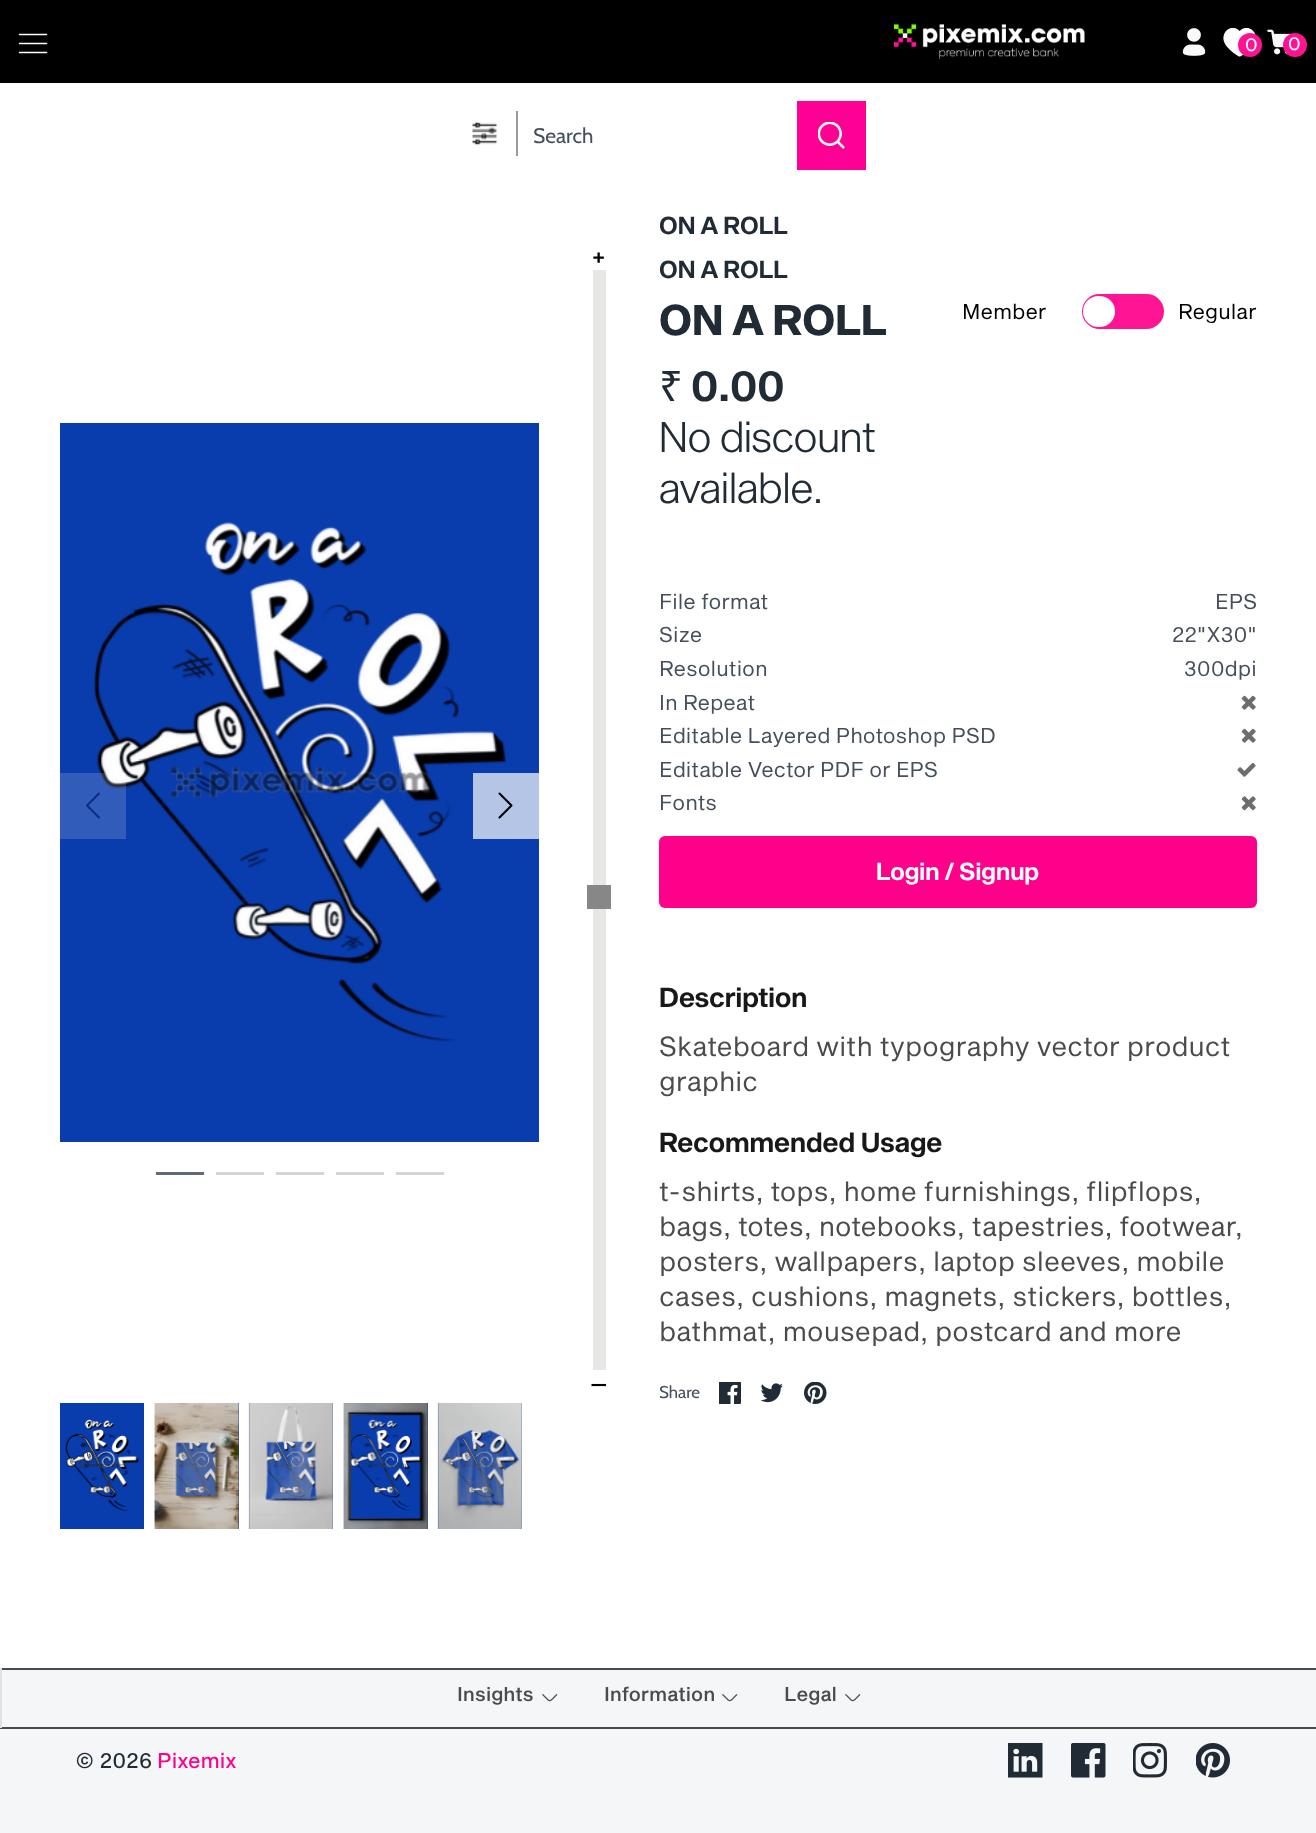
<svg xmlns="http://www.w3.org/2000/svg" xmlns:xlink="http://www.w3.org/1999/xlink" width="1316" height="1833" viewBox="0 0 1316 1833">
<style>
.cls-1{font:18px Cabin;fill:#ffffff}
.cls-2{font:21px Cabin;fill:#454f5b}
.cls-3{font:600 24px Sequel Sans;fill:#212b36}
.cls-4{font:30px Cabin;fill:#000000}
.cls-5{font:30px Liberation Sans;fill:#000000}
.cls-6{font:bold 42px Sequel Sans;fill:#212b36}
.cls-7{font:42px Noto Sans;fill:#212b36}
.cls-8{font:600 42px Sequel Sans;fill:#212b36}
.cls-9{font:300 42px Sequel Sans;fill:#212b36}
.cls-10{font:21px 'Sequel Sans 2';fill:#000000}
.cls-11{font:21px 'Sequel Sans 2';fill:#454f5b}
.cls-12{font:600 24px Sequel Sans;fill:#ffffff}
.cls-13{font:600 27px Sequel Sans;fill:#181818}
.cls-14{font:27px 'Sequel Sans 2';fill:#4b4b4b}
.cls-15{font:17px Cabin;fill:#454f5b}
.cls-16{font:500 19.5px Sequel Sans;fill:#4b4b4b}
.cls-17{font:21px Sequel Sans;fill:#212b36}
.cls-18{font:21px Sequel Sans;fill:#ff008b}
</style>
<rect width="100%" height="100%" fill="#f4f6f8"/>
<rect fill="#ffffff" x="0" y="83" width="1316" height="1585"/>
<rect fill="#000000" x="0" y="0" width="1316" height="83"/>
<path fill="none" stroke="#ffffff" stroke-width="1.5" stroke-linecap="round" stroke-linejoin="round" d="M19.5 43.5H46.5M19.5 34.5H46.5M19.5 52.5H46.5"/>
<image xlink:href="image0.png" x="894" y="24" width="191" height="36"/>
<image xlink:href="image1.png" x="1182" y="28" width="24" height="28"/>
<image xlink:href="image2.png" x="1223" y="27" width="33" height="30"/>
<circle fill="#ff1393" cx="1250" cy="45" r="12"/>
<image xlink:href="image3.png" x="1267" y="29" width="27" height="26"/>
<circle fill="#ff1393" cx="1295" cy="45" r="12"/>
<image xlink:href="image4.png" x="472" y="121" width="25" height="25"/>
<rect fill="#9a9a9a" x="516" y="111" width="2" height="45"/>
<rect fill="#ff0095" x="797" y="101" width="69" height="69"/>
<image xlink:href="image5.png" x="818" y="122" width="27" height="27"/>
<rect fill="#093cad" x="60" y="423" width="479" height="719"/>
<image xlink:href="image6.png" x="94" y="522" width="412" height="520"/>
<rect fill="#ffffff" fill-opacity="0.17" x="60" y="773" width="66" height="66"/>
<path fill="none" stroke="#072d82" stroke-width="2" stroke-linecap="round" stroke-linejoin="round" d="M99 817.5L87 805.5L99 793.5"/>
<rect fill="#b5c5e6" x="473" y="773" width="66" height="66"/>
<path fill="none" stroke="#000000" stroke-width="2" stroke-linecap="round" stroke-linejoin="round" d="M499.5 817.5L511.5 805.5L499.5 793.5"/>
<rect fill="#616974" x="156" y="1172" width="48" height="3"/>
<rect fill="#d1d3d6" x="216" y="1172" width="48" height="3"/>
<rect fill="#d1d3d6" x="276" y="1172" width="48" height="3"/>
<rect fill="#d1d3d6" x="336" y="1172" width="48" height="3"/>
<rect fill="#d1d3d6" x="396" y="1172" width="48" height="3"/>
<rect fill="#e7e7e6" x="593" y="270" width="13" height="1100"/>
<rect fill="#878787" x="587" y="885" width="24" height="24"/>
<rect fill="#093cad" x="60" y="1403" width="84" height="126"/>
<image xlink:href="image7.png" x="65" y="1419" width="74" height="92"/>
<image xlink:href="image8.png" x="65" y="1419" width="74" height="93"/>
<rect fill="#093cad" x="175" y="1403" width="64" height="126"/>
<image xlink:href="image10.png" x="175" y="1441" width="42" height="56"/>
<image xlink:href="image9.png" x="154" y="1403" width="85" height="126"/>
<rect fill="#093cad" x="249" y="1403" width="84" height="126"/>
<image xlink:href="image12.png" x="265" y="1440" width="53" height="61"/>
<image xlink:href="image11.png" x="248" y="1403" width="85" height="126"/>
<rect fill="#093cad" x="349" y="1403" width="79" height="126"/>
<image xlink:href="image14.png" x="349" y="1419" width="73" height="92"/>
<image xlink:href="image13.png" x="343" y="1403" width="85" height="126"/>
<rect fill="#093cad" x="438" y="1403" width="84" height="126"/>
<image xlink:href="image16.png" x="443" y="1429" width="74" height="77"/>
<image xlink:href="image15.png" x="437" y="1403" width="85" height="126"/>
<rect fill="#ff1494" x="1082" y="294" width="82" height="35" rx="17.5"/>
<rect fill="#ffffff" x="1083" y="296" width="32" height="31" rx="15.5"/>
<image xlink:href="image17.png" x="1241" y="695" width="15" height="15"/>
<image xlink:href="image17.png" x="1241" y="728" width="15" height="15"/>
<image xlink:href="image18.png" x="1237" y="762" width="19" height="15"/>
<image xlink:href="image19.png" x="1241" y="796" width="15" height="15"/>
<rect fill="#ff008a" x="659" y="836" width="598" height="72" rx="6"/>
<image xlink:href="image20.png" x="719" y="1382" width="22" height="22"/>
<image xlink:href="image21.png" x="761" y="1383" width="22" height="20"/>
<image xlink:href="image22.png" x="804" y="1382" width="23" height="22"/>
<rect fill="#4b4b4b" x="0" y="1668" width="1316" height="2"/>
<rect fill="#4b4b4b" x="0" y="1727" width="1316" height="2"/>
<rect fill="#dee2e6" x="0" y="1668" width="2" height="60"/>
<image xlink:href="image23.png" x="542" y="1694" width="16" height="8"/>
<image xlink:href="image23.png" x="722" y="1694" width="16" height="8"/>
<image xlink:href="image23.png" x="845" y="1694" width="16" height="8"/>
<image xlink:href="image24.png" x="1008" y="1743" width="35" height="35"/>
<image xlink:href="image25.png" x="1071" y="1743" width="35" height="35"/>
<image xlink:href="image26.png" x="1133" y="1743" width="34" height="35"/>
<image xlink:href="image27.png" x="1196" y="1743" width="34" height="35"/>
<text class="cls-1" x="1245" y="51">0</text>
<text class="cls-1" x="1288" y="50">0</text>
<text class="cls-2" x="533" y="143">Search</text>
<text class="cls-3" x="659" y="234">ON A ROLL</text>
<text class="cls-4" x="592" y="266">+</text>
<text class="cls-5" x="590" y="1395">−</text>
<text class="cls-3" x="659" y="278">ON A ROLL</text>
<text class="cls-6" x="659" y="335">ON A ROLL</text>
<text class="cls-7" x="659" y="401">₹</text>
<text class="cls-8" x="691" y="401">0.00</text>
<text class="cls-9"><tspan x="659" y="452">No discount</tspan><tspan x="659" y="503">available.</tspan></text>
<text class="cls-10" x="962" y="319">Member</text>
<text class="cls-10" x="1178" y="319">Regular</text>
<text class="cls-11" x="659" y="609">File format</text>
<text class="cls-11" x="1215" y="609">EPS</text>
<text class="cls-11" x="659" y="642">Size</text>
<text class="cls-11" x="1172" y="642">22"X30"</text>
<text class="cls-11" x="659" y="676">Resolution</text>
<text class="cls-11" x="1184" y="676">300dpi</text>
<text class="cls-11"><tspan x="659" y="710">In Repeat</tspan><tspan x="659" y="743">Editable Layered Photoshop PSD</tspan><tspan x="659" y="777">Editable Vector PDF or EPS</tspan><tspan x="659" y="810">Fonts</tspan></text>
<text class="cls-12" x="876" y="880">Login / Signup</text>
<text class="cls-13" x="659" y="1007">Description</text>
<text class="cls-14"><tspan x="659" y="1056">Skateboard with typography vector product</tspan><tspan x="659" y="1091">graphic</tspan></text>
<text class="cls-13" x="659" y="1152">Recommended Usage</text>
<text class="cls-14"><tspan x="659" y="1201">t-shirts, tops, home furnishings, flipflops,</tspan><tspan x="659" y="1236">bags, totes, notebooks, tapestries, footwear,</tspan><tspan x="659" y="1271">posters, wallpapers, laptop sleeves, mobile</tspan><tspan x="659" y="1306">cases, cushions, magnets, stickers, bottles,</tspan><tspan x="659" y="1341">bathmat, mousepad, postcard and more</tspan></text>
<text class="cls-15" x="659" y="1398">Share</text>
<text class="cls-16" x="457" y="1701">Insights</text>
<text class="cls-16" x="604" y="1701">Information</text>
<text class="cls-16" x="784" y="1701">Legal</text>
<text class="cls-17" x="75" y="1768">© 2026</text>
<text class="cls-18" x="157" y="1768">Pixemix</text>
</svg>
